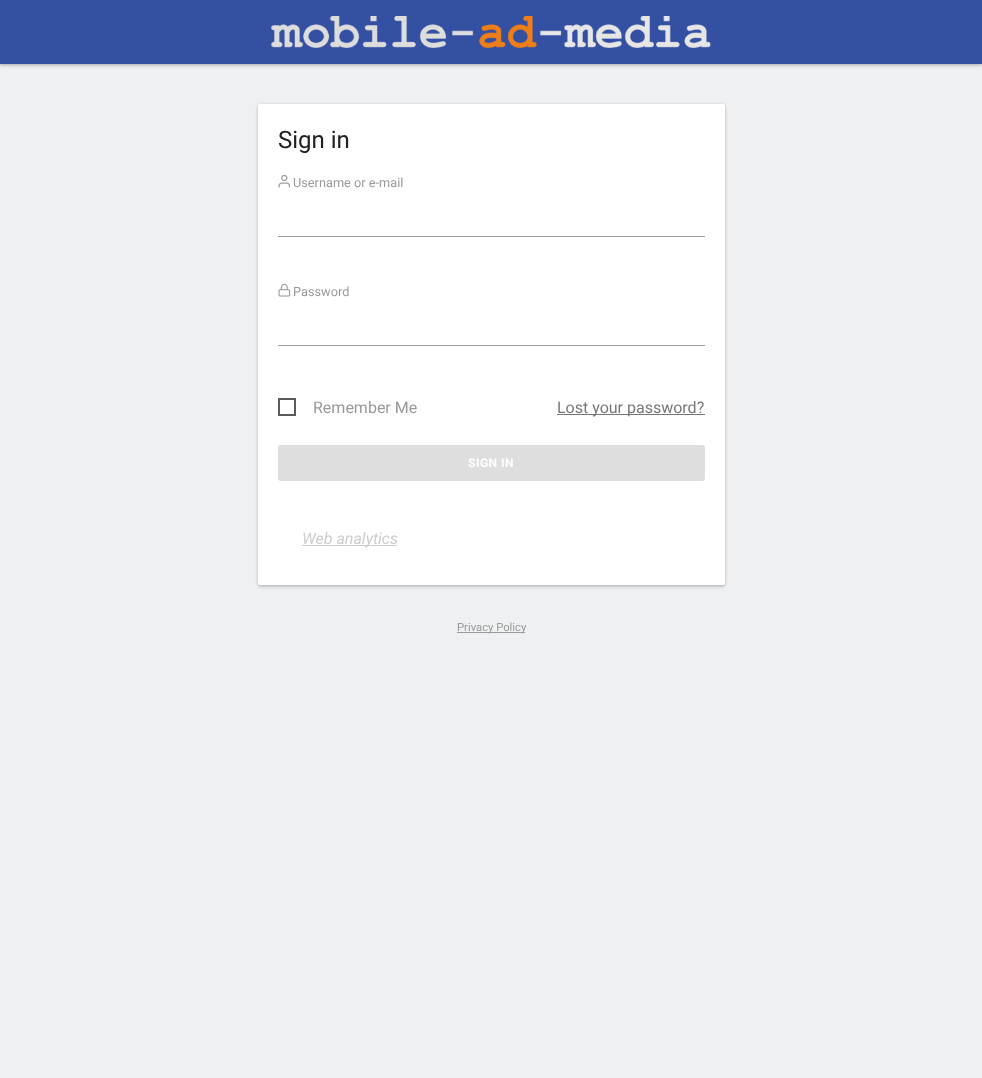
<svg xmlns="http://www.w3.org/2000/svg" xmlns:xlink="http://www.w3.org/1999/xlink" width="982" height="1078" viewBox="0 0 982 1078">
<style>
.cls-1{font:24px Roboto;fill:#212121}
.cls-2{font:12.75px Roboto;fill:#999999}
.cls-3{font:16px Roboto;fill:#999999}
.cls-4{font:16px Roboto;fill:#777777}
.cls-5{font:bold 12px Roboto;letter-spacing:0.5px;fill:#ffffff}
.cls-6{font:italic 16px Roboto;fill:#cdcdcd}
.cls-7{font:11.25px Roboto;fill:#999999}
</style>
<rect width="100%" height="100%" fill="#eff0f1"/>
<rect fill="#000000" fill-opacity="0.12" filter="blur(1.5px)" x="0" y="0" width="982" height="64"/>
<rect fill="#000000" fill-opacity="0.16" filter="blur(1.5px)" x="0" y="2" width="982" height="64"/>
<rect fill="#3450a3" x="0" y="0" width="982" height="64"/>
<image xlink:href="image0.png" x="271" y="16" width="440" height="32"/>
<rect fill="#000000" fill-opacity="0.12" filter="blur(1.5px)" x="258" y="104" width="467" height="481" rx="2"/>
<rect fill="#000000" fill-opacity="0.16" filter="blur(1.5px)" x="258" y="106" width="467" height="481" rx="2"/>
<rect fill="#ffffff" x="258" y="104" width="467" height="481" rx="2"/>
<image xlink:href="image1.png" x="278" y="174" width="13" height="14"/>
<rect fill="#9e9e9e" x="278" y="236" width="427" height="1"/>
<image xlink:href="image2.png" x="278" y="283" width="13" height="14"/>
<rect fill="#9e9e9e" x="278" y="345" width="427" height="1"/>
<rect fill="none" stroke="#5a5a5a" stroke-width="2" x="279" y="399" width="16" height="16"/>
<rect fill="#777777" x="557" y="414" width="148" height="1"/>
<rect fill="#dedede" x="278" y="445" width="427" height="36" rx="3"/>
<rect fill="#cdcdcd" x="302" y="545" width="95" height="1"/>
<rect fill="#999999" x="457" y="632" width="68" height="1"/>
<text class="cls-1" x="278" y="148">Sign in</text>
<text class="cls-2" x="293" y="187">Username or e-mail</text>
<text class="cls-2" x="293" y="296">Password</text>
<text class="cls-3" x="313" y="413">Remember Me</text>
<text class="cls-4" x="557" y="413">Lost your password?</text>
<text class="cls-5" x="468" y="467">SIGN IN</text>
<text class="cls-6" x="302" y="544">Web analytics</text>
<text class="cls-7" x="457" y="631">Privacy Policy</text>
</svg>
